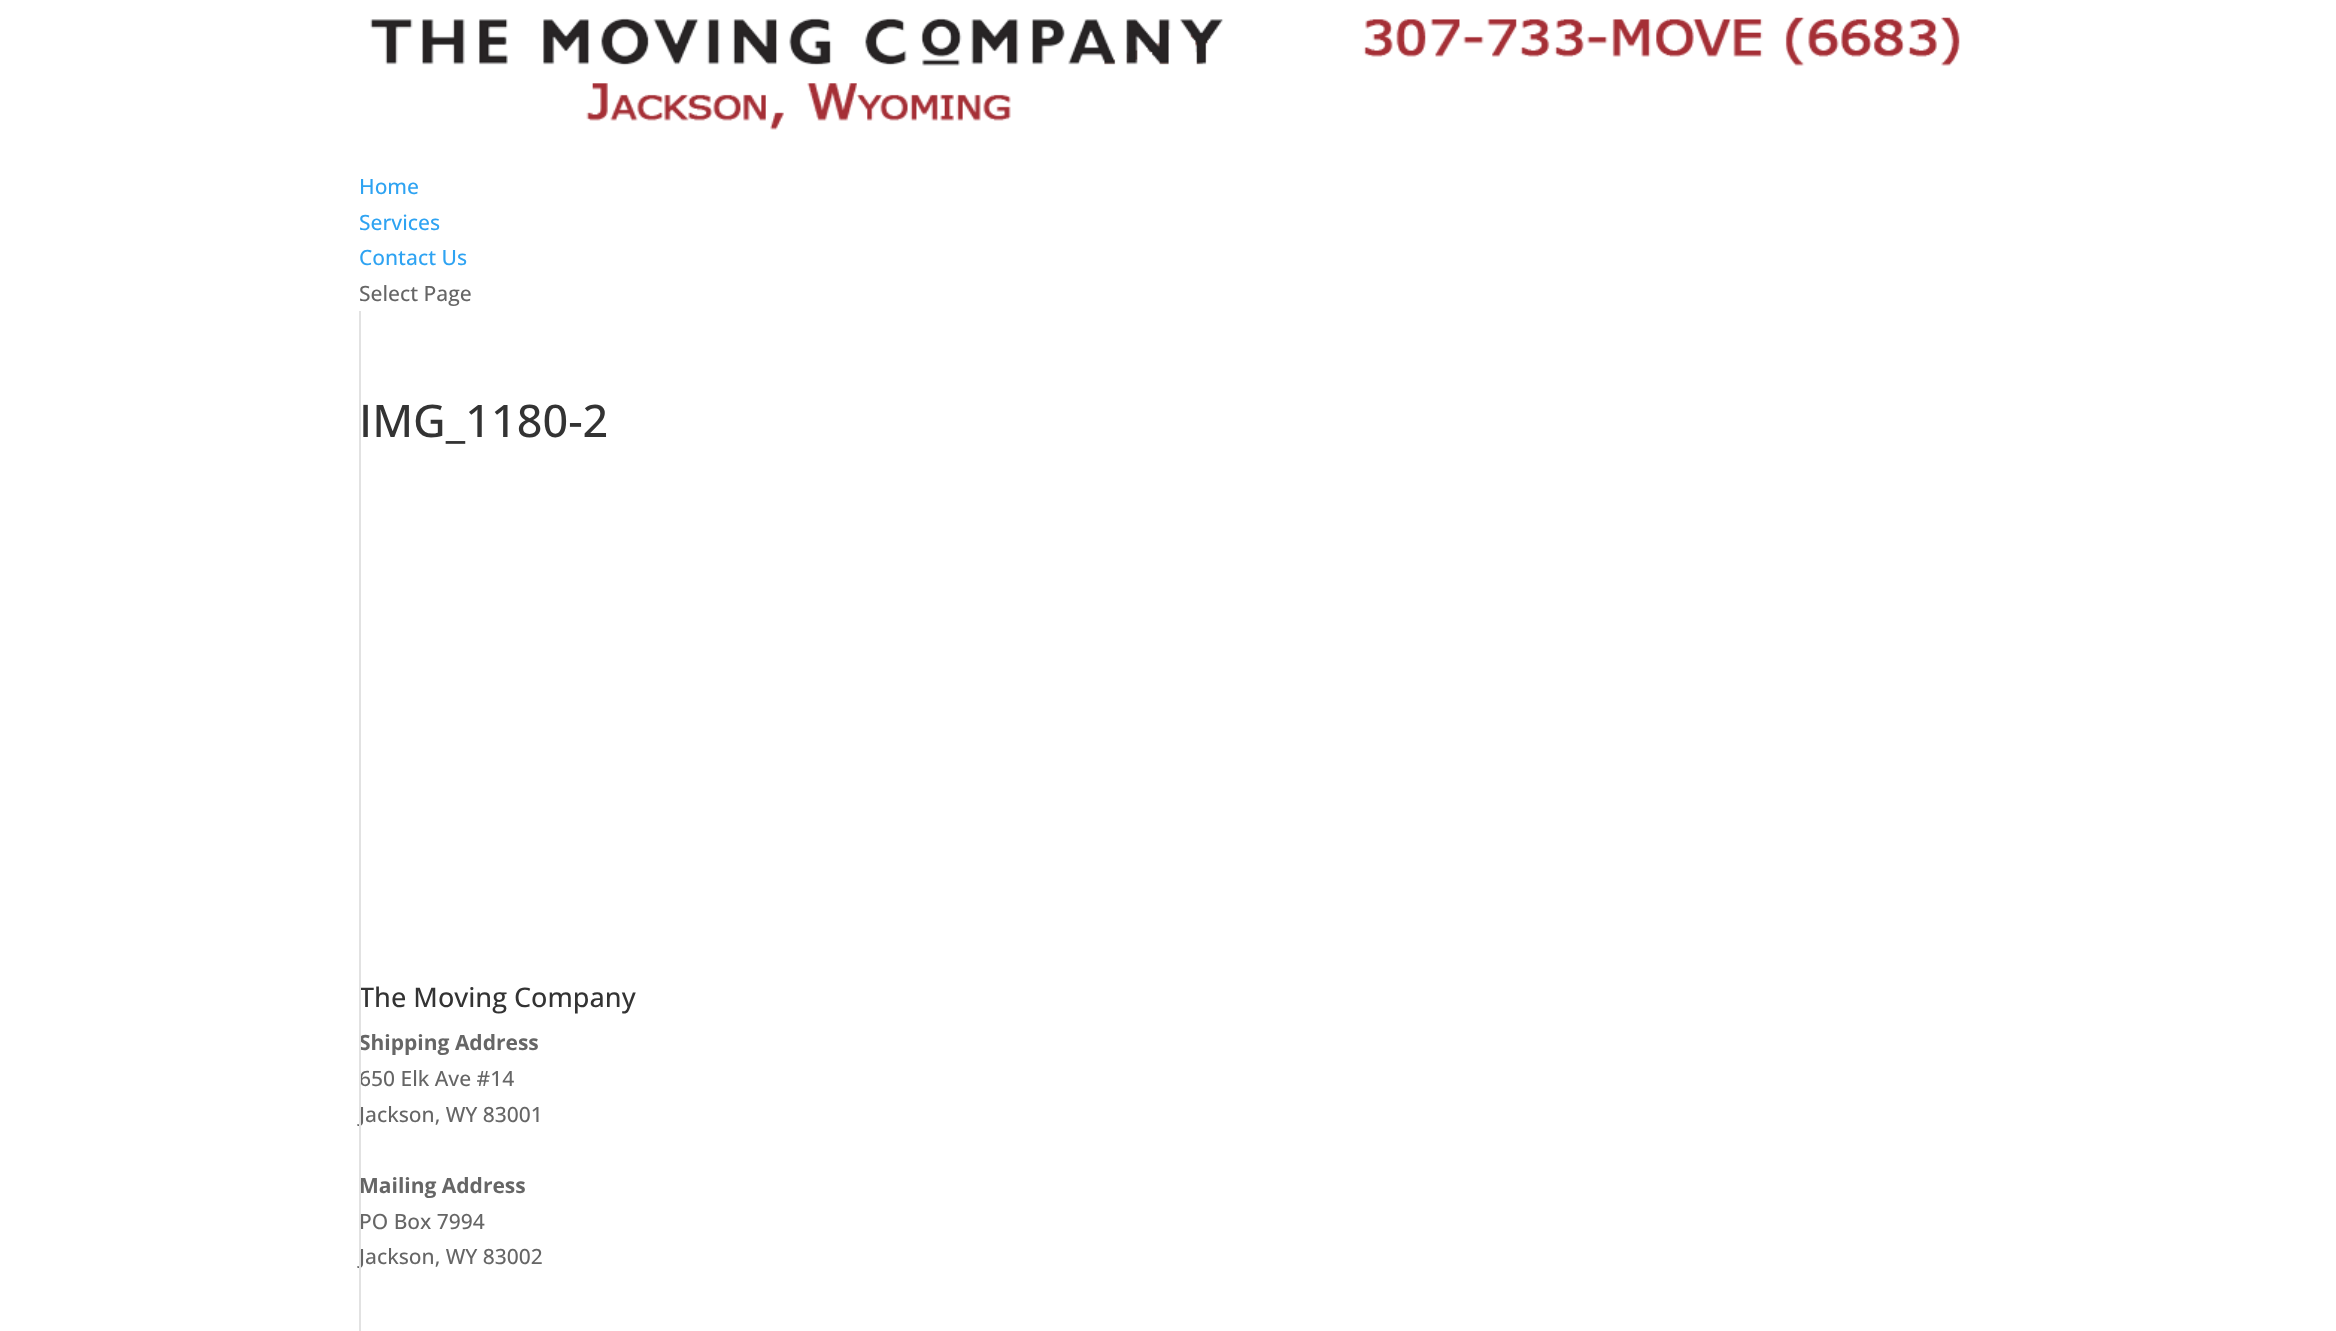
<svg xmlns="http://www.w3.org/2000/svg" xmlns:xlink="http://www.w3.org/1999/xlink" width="2336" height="1331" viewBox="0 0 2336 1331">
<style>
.cls-1{font:500 21px Open Sans;fill:#2ea3f2}
.cls-2{font:500 21px Open Sans;fill:#666666}
.cls-3{font:500 45px Open Sans;fill:#333333}
.cls-4{font:500 27px Open Sans;fill:#333333}
.cls-5{font:bold 21px Open Sans;fill:#666666}
</style>
<rect width="100%" height="100%" fill="#ffffff"/>
<image xlink:href="image0.png" x="370" y="17" width="1590" height="113"/>
<text class="cls-1"><tspan x="359" y="194">Home</tspan><tspan x="359" y="230">Services</tspan><tspan x="359" y="265">Contact Us</tspan></text>
<text class="cls-2" x="359" y="301">Select Page</text>
<text class="cls-3" x="359" y="437">IMG_1180-2</text>
<text class="cls-4" x="359" y="1007">The Moving Company</text>
<text class="cls-5" x="359" y="1050">Shipping Address</text>
<text class="cls-2"><tspan x="359" y="1086">650 Elk Ave #14</tspan><tspan x="359" y="1122">Jackson, WY 83001</tspan></text>
<text class="cls-5" x="359" y="1193">Mailing Address</text>
<text class="cls-2"><tspan x="359" y="1229">PO Box 7994</tspan><tspan x="359" y="1264">Jackson, WY 83002</tspan></text>
<rect fill="#e2e2e2" x="359" y="311" width="2" height="1020"/>
</svg>
